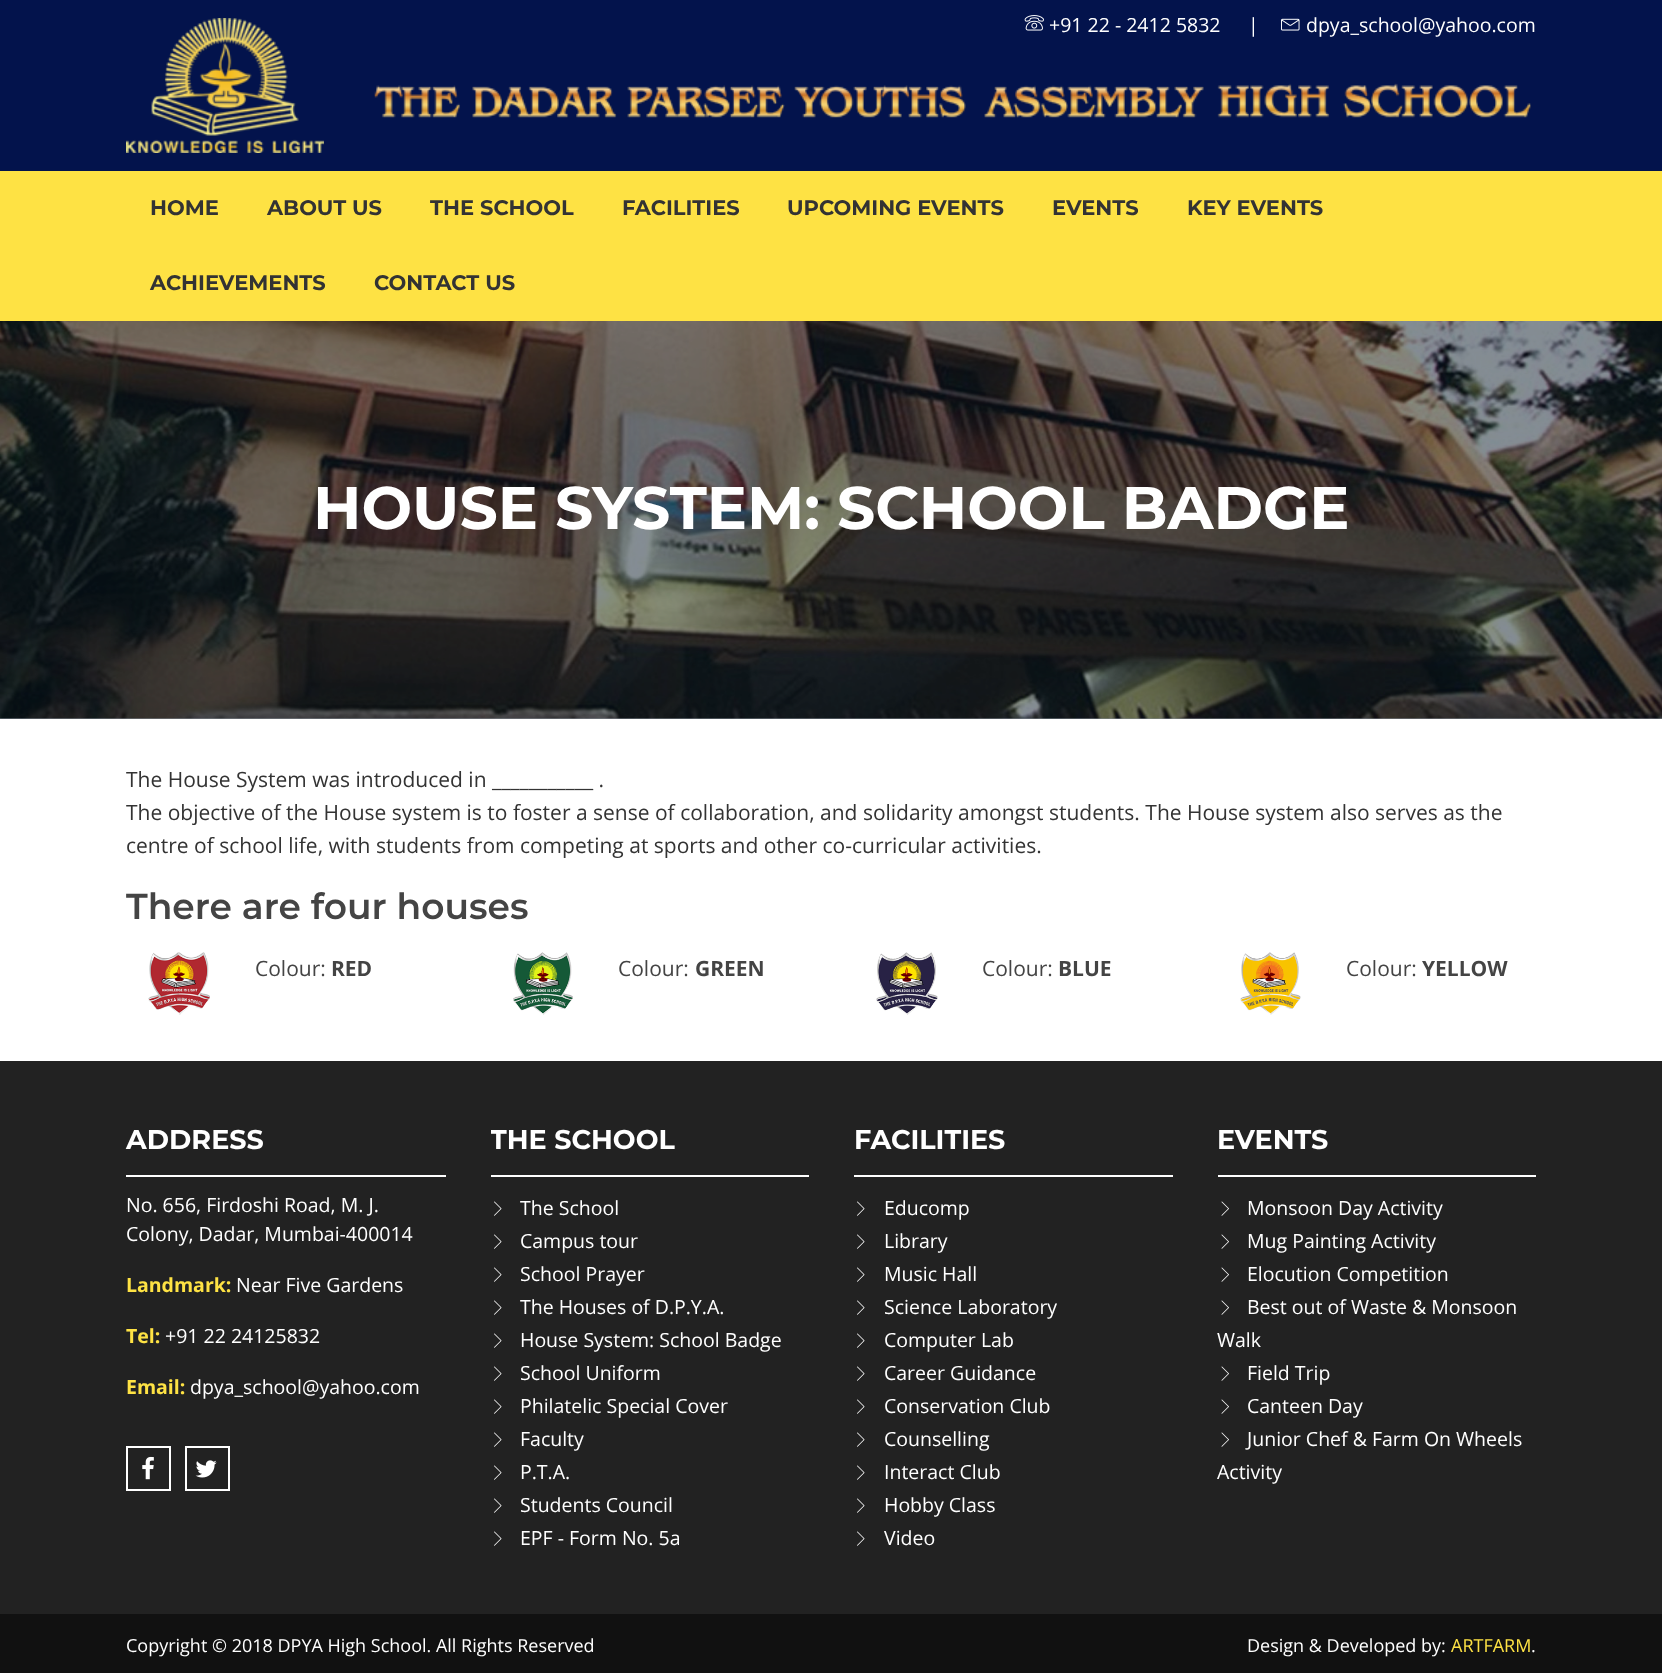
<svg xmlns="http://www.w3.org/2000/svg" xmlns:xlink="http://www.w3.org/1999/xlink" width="1662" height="1673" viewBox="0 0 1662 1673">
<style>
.cls-1{font:19.5px Open Sans;fill:#ffffff}
.cls-2{font:bold 21px Montserrat;fill:#333333}
.cls-3{font:bold 60px Montserrat;fill:#ffffff}
.cls-4{font:21px Open Sans;fill:#333333}
.cls-5{font:600 36px Montserrat;fill:#444444}
.cls-6{font:21px Open Sans;fill:#444444}
.cls-7{font:bold 21px Open Sans;fill:#444444}
.cls-8{font:bold 27px Montserrat;fill:#ffffff}
.cls-9{font:bold 19.5px Open Sans;fill:#fee244}
.cls-10{font:18px Open Sans;fill:#ffffff}
.cls-11{font:18px Open Sans;fill:#fee244}
</style>
<defs>
<clipPath id="clip1"><rect x="491" y="1121" width="318" height="433"/></clipPath>
</defs>
<rect width="100%" height="100%" fill="#ffffff"/>
<rect fill="#858d94" x="0" y="718" width="1662" height="1"/>
<rect fill="#03134c" x="0" y="0" width="1662" height="171"/>
<image xlink:href="image0.png" x="126" y="18" width="198" height="135"/>
<image xlink:href="image1.png" x="1024" y="15" width="20" height="16"/>
<image xlink:href="image2.png" x="1281" y="18" width="19" height="13"/>
<image xlink:href="image3.png" x="374" y="83" width="1157" height="35"/>
<rect fill="#fee244" x="0" y="171" width="1662" height="150"/>
<image xlink:href="image4.png" x="0" y="321" width="1662" height="398"/>
<image xlink:href="image5.png" x="148" y="952" width="62" height="63"/>
<image xlink:href="image6.png" x="513" y="952" width="60" height="63"/>
<image xlink:href="image7.png" x="876" y="952" width="62" height="63"/>
<image xlink:href="image8.png" x="1240" y="952" width="61" height="63"/>
<rect fill="#222222" x="0" y="1061" width="1662" height="553"/>
<rect fill="#ffffff" x="126" y="1175" width="320" height="2"/>
<rect fill="none" stroke="#ffffff" stroke-width="2" x="127" y="1447" width="43" height="43"/>
<image xlink:href="image9.png" x="142" y="1456" width="12" height="24"/>
<rect fill="none" stroke="#ffffff" stroke-width="2" x="186" y="1447" width="43" height="43"/>
<image xlink:href="image10.png" x="195" y="1460" width="22" height="18"/>
<rect fill="#ffffff" x="491" y="1175" width="318" height="2"/>
<image xlink:href="image11.png" x="494" y="1201" width="8" height="15"/>
<image xlink:href="image11.png" x="494" y="1234" width="8" height="15"/>
<image xlink:href="image11.png" x="494" y="1267" width="8" height="15"/>
<image xlink:href="image11.png" x="494" y="1300" width="8" height="15"/>
<image xlink:href="image11.png" x="494" y="1333" width="8" height="15"/>
<image xlink:href="image11.png" x="494" y="1366" width="8" height="15"/>
<image xlink:href="image11.png" x="494" y="1399" width="8" height="15"/>
<image xlink:href="image11.png" x="494" y="1432" width="8" height="15"/>
<image xlink:href="image11.png" x="494" y="1465" width="8" height="15"/>
<image xlink:href="image11.png" x="494" y="1498" width="8" height="15"/>
<image xlink:href="image11.png" x="494" y="1531" width="8" height="15"/>
<rect fill="#ffffff" x="854" y="1175" width="319" height="2"/>
<image xlink:href="image11.png" x="857" y="1201" width="8" height="15"/>
<image xlink:href="image11.png" x="857" y="1234" width="8" height="15"/>
<image xlink:href="image11.png" x="857" y="1267" width="8" height="15"/>
<image xlink:href="image11.png" x="857" y="1300" width="8" height="15"/>
<image xlink:href="image11.png" x="857" y="1333" width="8" height="15"/>
<image xlink:href="image11.png" x="857" y="1366" width="8" height="15"/>
<image xlink:href="image11.png" x="857" y="1399" width="8" height="15"/>
<image xlink:href="image11.png" x="857" y="1432" width="8" height="15"/>
<image xlink:href="image11.png" x="857" y="1465" width="8" height="15"/>
<image xlink:href="image11.png" x="857" y="1498" width="8" height="15"/>
<image xlink:href="image11.png" x="857" y="1531" width="8" height="15"/>
<rect fill="#ffffff" x="1218" y="1175" width="318" height="2"/>
<image xlink:href="image12.png" x="1221" y="1201" width="8" height="15"/>
<image xlink:href="image12.png" x="1221" y="1234" width="8" height="15"/>
<image xlink:href="image12.png" x="1221" y="1267" width="8" height="15"/>
<image xlink:href="image12.png" x="1221" y="1300" width="8" height="15"/>
<image xlink:href="image12.png" x="1221" y="1366" width="8" height="15"/>
<image xlink:href="image12.png" x="1221" y="1399" width="8" height="15"/>
<image xlink:href="image12.png" x="1221" y="1432" width="8" height="15"/>
<rect fill="#111111" x="0" y="1614" width="1662" height="59"/>
<text class="cls-1" x="1049" y="32">+91 22 - 2412 5832</text>
<text class="cls-1" x="1248" y="32">|</text>
<text class="cls-1" x="1306" y="32">dpya_school@yahoo.com</text>
<text class="cls-2" x="150" y="215">HOME</text>
<text class="cls-2" x="267" y="215">ABOUT US</text>
<text class="cls-2" x="430" y="215">THE SCHOOL</text>
<text class="cls-2" x="622" y="215">FACILITIES</text>
<text class="cls-2" x="787" y="215">UPCOMING EVENTS</text>
<text class="cls-2" x="1052" y="215">EVENTS</text>
<text class="cls-2" x="1187" y="215">KEY EVENTS</text>
<text class="cls-2" x="150" y="290">ACHIEVEMENTS</text>
<text class="cls-2" x="374" y="290">CONTACT US</text>
<text class="cls-3" x="313" y="529">HOUSE SYSTEM: SCHOOL BADGE</text>
<text class="cls-4"><tspan x="126" y="787">The House System was introduced in ___________ .</tspan><tspan x="126" y="820">The objective of the House system is to foster a sense of collaboration, and solidarity amongst students. The House system also serves as the</tspan><tspan x="126" y="853">centre of school life, with students from competing at sports and other co-curricular activities.</tspan></text>
<text class="cls-5" x="126" y="919">There are four houses</text>
<text class="cls-6" x="255" y="976">Colour:</text>
<text class="cls-7" x="331" y="976">RED</text>
<text class="cls-6" x="618" y="976">Colour:</text>
<text class="cls-7" x="695" y="976">GREEN</text>
<text class="cls-6" x="982" y="976">Colour:</text>
<text class="cls-7" x="1058" y="976">BLUE</text>
<text class="cls-6" x="1346" y="976">Colour:</text>
<text class="cls-7" x="1422" y="976">YELLOW</text>
<text class="cls-8" x="126" y="1149">ADDRESS</text>
<text class="cls-1"><tspan x="126" y="1212">No. 656, Firdoshi Road, M. J.</tspan><tspan x="126" y="1241">Colony, Dadar, Mumbai-400014</tspan></text>
<text class="cls-9" x="126" y="1292">Landmark:</text>
<text class="cls-1" x="236" y="1292">Near Five Gardens</text>
<text class="cls-9" x="126" y="1343">Tel:</text>
<text class="cls-1" x="165" y="1343">+91 22 24125832</text>
<text class="cls-9" x="126" y="1394">Email:</text>
<text class="cls-1" x="190" y="1394">dpya_school@yahoo.com</text>
<g clip-path="url(#clip1)">
<text class="cls-8" x="490" y="1149">THE SCHOOL</text>
</g>
<text class="cls-1"><tspan x="520" y="1215">The School</tspan><tspan x="520" y="1248">Campus tour</tspan><tspan x="520" y="1281">School Prayer</tspan><tspan x="520" y="1314">The Houses of D.P.Y.A.</tspan><tspan x="520" y="1347">House System: School Badge</tspan><tspan x="520" y="1380">School Uniform</tspan><tspan x="520" y="1413">Philatelic Special Cover</tspan><tspan x="520" y="1446">Faculty</tspan><tspan x="520" y="1479">P.T.A.</tspan><tspan x="520" y="1512">Students Council</tspan><tspan x="520" y="1545">EPF - Form No. 5a</tspan></text>
<text class="cls-8" x="854" y="1149">FACILITIES</text>
<text class="cls-1"><tspan x="884" y="1215">Educomp</tspan><tspan x="884" y="1248">Library</tspan><tspan x="884" y="1281">Music Hall</tspan><tspan x="884" y="1314">Science Laboratory</tspan><tspan x="884" y="1347">Computer Lab</tspan><tspan x="884" y="1380">Career Guidance</tspan><tspan x="884" y="1413">Conservation Club</tspan><tspan x="884" y="1446">Counselling</tspan><tspan x="884" y="1479">Interact Club</tspan><tspan x="884" y="1512">Hobby Class</tspan><tspan x="884" y="1545">Video</tspan></text>
<text class="cls-8" x="1217" y="1149">EVENTS</text>
<text class="cls-1"><tspan x="1247" y="1215">Monsoon Day Activity</tspan><tspan x="1247" y="1248">Mug Painting Activity</tspan><tspan x="1247" y="1281">Elocution Competition</tspan><tspan x="1247" y="1314">Best out of Waste &amp; Monsoon</tspan></text>
<text class="cls-1" x="1217" y="1347">Walk</text>
<text class="cls-1"><tspan x="1247" y="1380">Field Trip</tspan><tspan x="1247" y="1413">Canteen Day</tspan><tspan x="1247" y="1446">Junior Chef &amp; Farm On Wheels</tspan></text>
<text class="cls-1" x="1217" y="1479">Activity</text>
<text class="cls-10" x="126" y="1652">Copyright © 2018 DPYA High School. All Rights Reserved</text>
<text class="cls-10" x="1247" y="1652">Design &amp; Developed by:</text>
<text class="cls-11" x="1451" y="1652">ARTFARM</text>
<text class="cls-10" x="1531" y="1652">.</text>
</svg>
